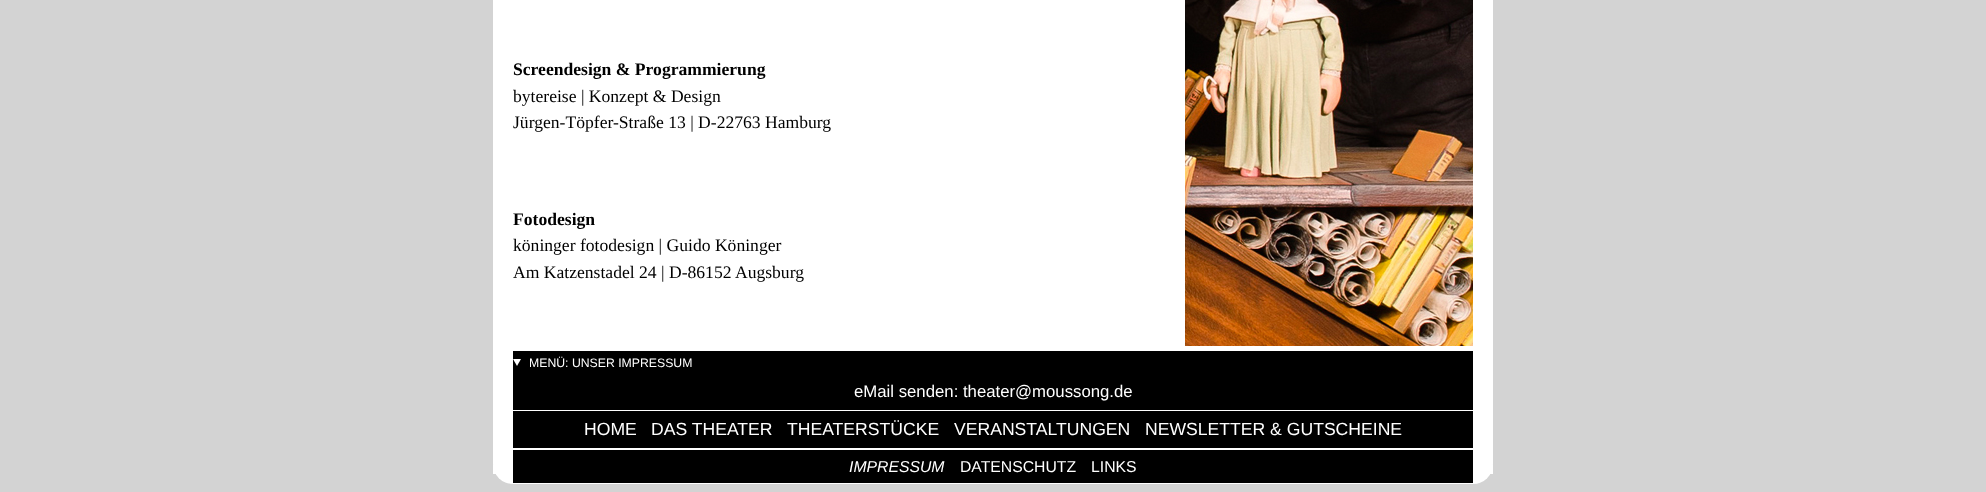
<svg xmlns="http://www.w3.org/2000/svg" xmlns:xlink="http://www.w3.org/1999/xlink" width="1986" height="492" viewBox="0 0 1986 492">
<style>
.cls-1{font:bold 17.6px Liberation Serif;fill:#000000}
.cls-2{font:17.6px Liberation Serif;fill:#000000}
.cls-3{font:12.25px Liberation Sans;fill:#ffffff}
.cls-4{font:16.75px Liberation Sans;fill:#ffffff}
.cls-5{font:17.6px Liberation Sans;fill:#ffffff}
.cls-6{font:italic 15.75px Liberation Sans;fill:#ffffff}
.cls-7{font:15.75px Liberation Sans;fill:#ffffff}
</style>
<rect width="100%" height="100%" fill="#d3d3d3"/>
<rect fill="#ffffff" x="493" y="-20" width="1000" height="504" rx="20"/>
<rect fill="#ffffff" x="1490" y="465" width="3" height="9"/>
<rect fill="#ffffff" x="493" y="465" width="3" height="9"/>
<image xlink:href="image0.png" x="1185" y="0" width="288" height="346"/>
<rect fill="#000000" x="513" y="351" width="960" height="97"/>
<path fill="#ffffff" d="M513 359H521L517 366Z"/>
<rect fill="#ffffff" x="513" y="410" width="960" height="1"/>
<rect fill="#000000" x="513" y="450" width="960" height="33"/>
<text class="cls-1" x="513" y="75">Screendesign &amp; Programmierung</text>
<text class="cls-2"><tspan x="513" y="102">bytereise | Konzept &amp; Design</tspan><tspan x="513" y="128">Jürgen-Töpfer-Straße 13 | D-22763 Hamburg</tspan></text>
<text class="cls-1" x="513" y="225">Fotodesign</text>
<text class="cls-2"><tspan x="513" y="251">köninger fotodesign | Guido Köninger</tspan><tspan x="513" y="278">Am Katzenstadel 24 | D-86152 Augsburg</tspan></text>
<text class="cls-3" x="529" y="367">MENÜ: UNSER IMPRESSUM</text>
<text class="cls-4" x="854" y="397">eMail senden: theater@moussong.de</text>
<text class="cls-5" x="584" y="435">HOME</text>
<text class="cls-5" x="651" y="435">DAS THEATER</text>
<text class="cls-5" x="787" y="435">THEATERSTÜCKE</text>
<text class="cls-5" x="954" y="435">VERANSTALTUNGEN</text>
<text class="cls-5" x="1145" y="435">NEWSLETTER &amp; GUTSCHEINE</text>
<text class="cls-6" x="849" y="472">IMPRESSUM</text>
<text class="cls-7" x="960" y="472">DATENSCHUTZ</text>
<text class="cls-7" x="1091" y="472">LINKS</text>
</svg>
